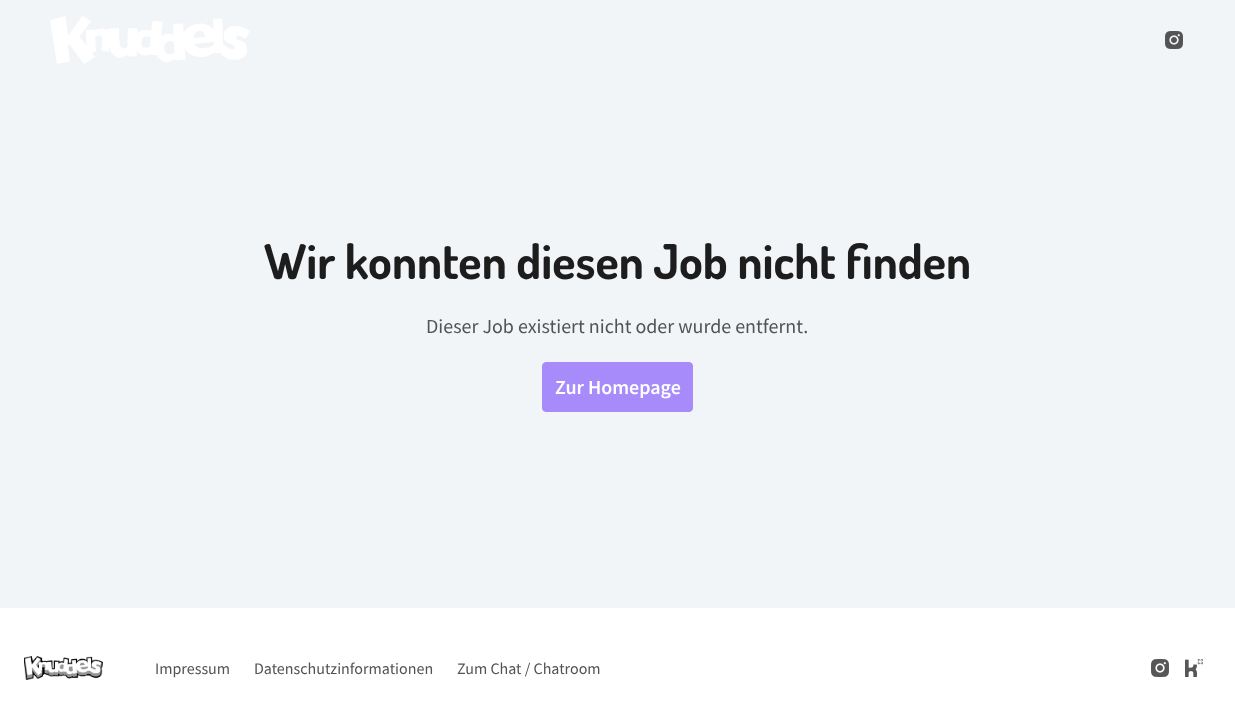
<svg xmlns="http://www.w3.org/2000/svg" xmlns:xlink="http://www.w3.org/1999/xlink" width="1235" height="728" viewBox="0 0 1235 728">
<style>
.cls-1{font:bold 48px Dosis;fill:#1d1d1e}
.cls-2{font:20px Source Sans Pro;fill:#525354}
.cls-3{font:600 20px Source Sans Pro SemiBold;fill:#ffffff}
.cls-4{font:16px Source Sans Pro;fill:#525354}
</style>
<rect width="100%" height="100%" fill="#f2f5f8"/>
<image xlink:href="image0.png" x="50" y="16" width="200" height="48"/>
<image xlink:href="image1.png" x="1165" y="31" width="18" height="18"/>
<rect fill="#a78bfa" stroke="#a78bfa" x="542.5" y="362.5" width="150" height="49" rx="3.5"/>
<rect fill="#ffffff" x="0" y="608" width="1235" height="120"/>
<image xlink:href="image2.png" x="24" y="656" width="79" height="24"/>
<image xlink:href="image3.png" x="1151" y="659" width="18" height="18"/>
<image xlink:href="image4.png" x="1185" y="659" width="18" height="18"/>
<text class="cls-1" x="264" y="279">Wir konnten diesen Job nicht finden</text>
<text class="cls-2" x="426" y="333">Dieser Job existiert nicht oder wurde entfernt.</text>
<text class="cls-3" x="555" y="394">Zur Homepage</text>
<text class="cls-4" x="155" y="674">Impressum</text>
<text class="cls-4" x="254" y="674">Datenschutzinformationen</text>
<text class="cls-4" x="457" y="674">Zum Chat / Chatroom</text>
</svg>
